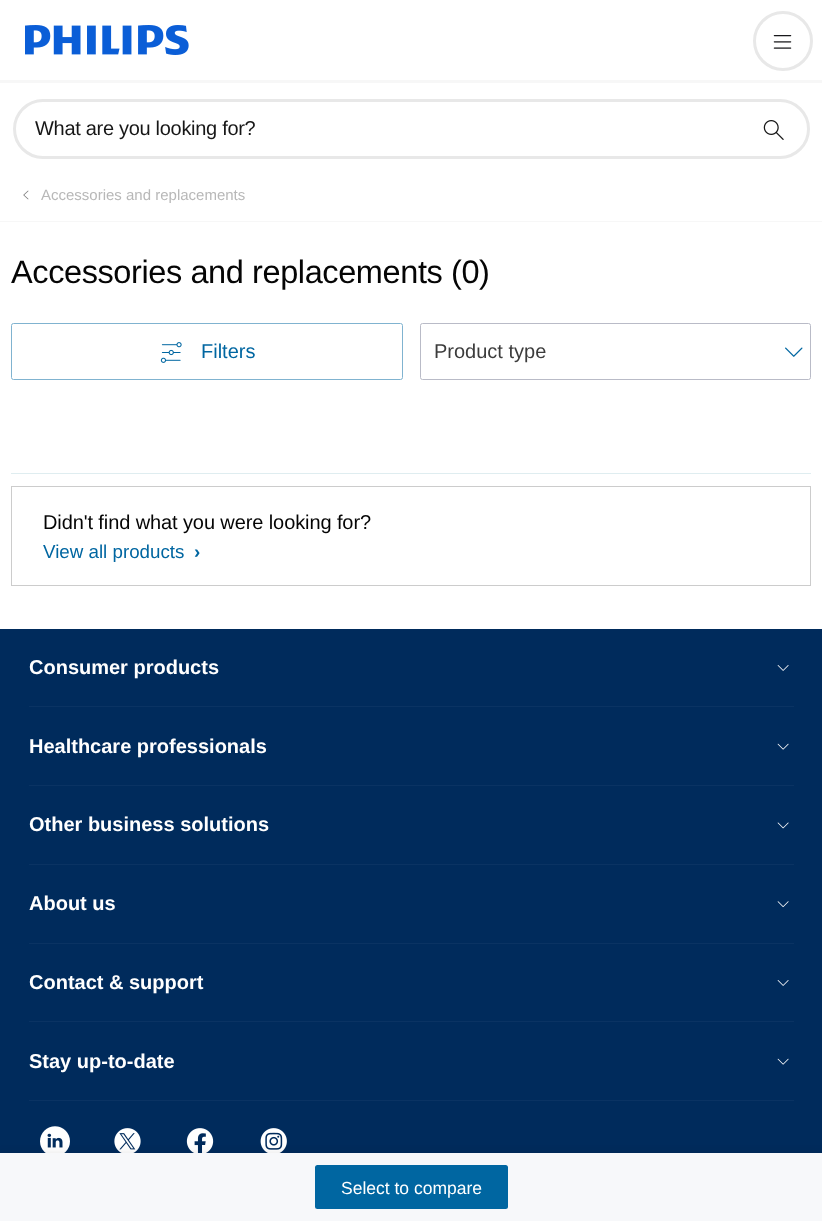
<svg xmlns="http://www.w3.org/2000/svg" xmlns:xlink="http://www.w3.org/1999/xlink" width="822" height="1221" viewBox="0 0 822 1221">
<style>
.cls-1{font:20px Liberation Sans;letter-spacing:-0.3px;fill:#171717}
.cls-2{font:15px Liberation Sans;fill:#b8b8b8}
.cls-3{font:32.5px Liberation Sans;letter-spacing:-0.4px;fill:#050505}
.cls-4{font:20px Liberation Sans;fill:#0066a1}
.cls-5{font:20px Liberation Sans;fill:#3c3c3c}
.cls-6{font:20px Liberation Sans;letter-spacing:-0.1px;fill:#050505}
.cls-7{font:18.75px Liberation Sans;fill:#0066a1}
.cls-8{font:bold 18.75px Liberation Sans;fill:#0066a1}
.cls-9{font:bold 20px Liberation Sans;fill:#ffffff}
.cls-10{font:17.5px Liberation Sans;fill:#ffffff}
</style>
<rect width="100%" height="100%" fill="#ffffff"/>
<image xlink:href="image0.png" x="25" y="25" width="164" height="30"/>
<rect fill="#f7f7f7" x="0" y="80" width="822" height="3"/>
<circle fill="none" stroke="#e8e8e8" stroke-width="3" cx="783" cy="41" r="28.5"/>
<image xlink:href="image1.png" x="773" y="35" width="19" height="14"/>
<rect fill="none" stroke="#e8e8e8" stroke-width="3" x="14.5" y="100.5" width="794" height="57" rx="28.5"/>
<image xlink:href="image2.png" x="763" y="120" width="21" height="20"/>
<rect fill="#f7f7f7" x="0" y="221" width="822" height="1"/>
<image xlink:href="image3.png" x="23" y="190" width="6" height="10"/>
<rect fill="none" stroke="#80b3d0" x="11.5" y="323.5" width="391" height="56" rx="2"/>
<image xlink:href="image4.png" x="160" y="342" width="22" height="21"/>
<rect fill="none" stroke="#b9bbc7" x="420.5" y="323.5" width="390" height="56" rx="2"/>
<image xlink:href="image5.png" x="785" y="347" width="18" height="10"/>
<rect fill="#dfedf0" x="11" y="473" width="800" height="1"/>
<rect fill="none" stroke="#cccccc" x="11.5" y="486.5" width="799" height="99"/>
<rect fill="#002b5c" x="0" y="629" width="822" height="524"/>
<rect fill="#0a3363" x="29" y="706" width="765" height="1"/>
<image xlink:href="image6.png" x="777" y="665" width="12" height="6"/>
<rect fill="#0a3363" x="29" y="785" width="765" height="1"/>
<image xlink:href="image7.png" x="777" y="743" width="12" height="7"/>
<rect fill="#0a3363" x="29" y="864" width="765" height="1"/>
<image xlink:href="image8.png" x="777" y="822" width="12" height="7"/>
<rect fill="#0a3363" x="29" y="943" width="765" height="1"/>
<image xlink:href="image9.png" x="777" y="901" width="12" height="7"/>
<rect fill="#0a3363" x="29" y="1021" width="765" height="1"/>
<image xlink:href="image6.png" x="777" y="980" width="12" height="6"/>
<rect fill="#0a3363" x="29" y="1100" width="765" height="1"/>
<image xlink:href="image7.png" x="777" y="1058" width="12" height="7"/>
<image xlink:href="image10.png" x="40" y="1126" width="30" height="27"/>
<image xlink:href="image11.png" x="114" y="1128" width="27" height="25"/>
<image xlink:href="image12.png" x="186" y="1128" width="28" height="25"/>
<image xlink:href="image13.png" x="260" y="1128" width="27" height="25"/>
<rect fill="#000000" fill-opacity="0.1" filter="blur(4px)" x="0" y="1153" width="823" height="68"/>
<rect fill="#f7f8fa" x="0" y="1153" width="822" height="68"/>
<rect fill="#0066a1" x="315" y="1165" width="193" height="44" rx="2.5"/>
<text class="cls-1" x="35" y="135">What are you looking for?</text>
<text class="cls-2" x="41" y="200">Accessories and replacements</text>
<text class="cls-3" x="11" y="283">Accessories and replacements (0)</text>
<text class="cls-4" x="201" y="358">Filters</text>
<text class="cls-5" x="434" y="358">Product type</text>
<text class="cls-6" x="43" y="529">Didn't find what you were looking for?</text>
<text class="cls-7" x="43" y="558">View all products</text>
<text class="cls-8" x="194" y="558">›</text>
<text class="cls-9" x="29" y="674">Consumer products</text>
<text class="cls-9" x="29" y="753">Healthcare professionals</text>
<text class="cls-9" x="29" y="831">Other business solutions</text>
<text class="cls-9" x="29" y="910">About us</text>
<text class="cls-9" x="29" y="989">Contact &amp; support</text>
<text class="cls-9" x="29" y="1068">Stay up-to-date</text>
<text class="cls-10" x="341" y="1194">Select to compare</text>
</svg>
